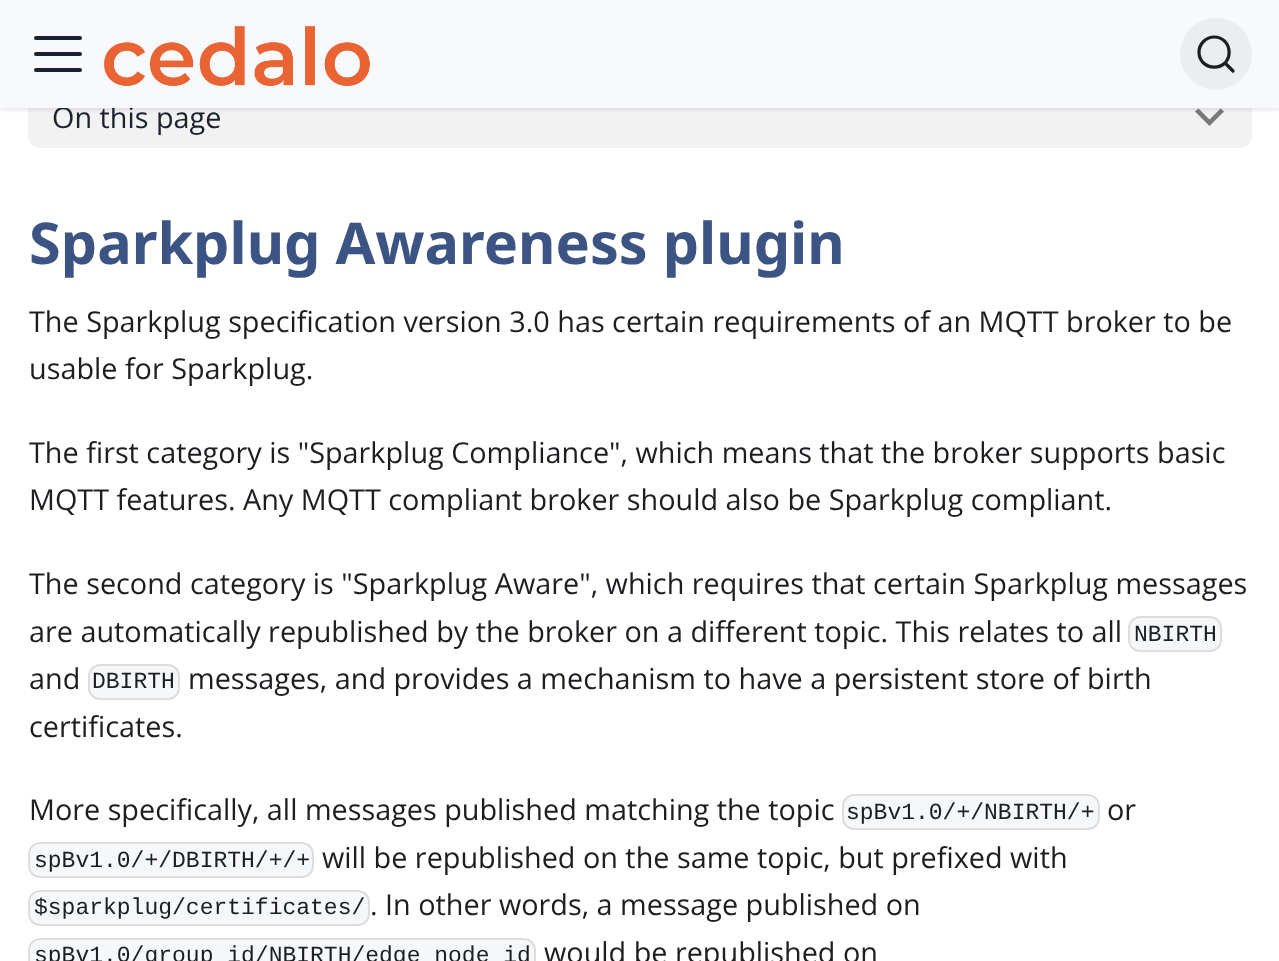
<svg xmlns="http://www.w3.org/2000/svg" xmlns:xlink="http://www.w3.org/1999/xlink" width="1279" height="961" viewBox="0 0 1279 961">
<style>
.cls-1{font:28.8px Open Sans;fill:#1b212f}
.cls-2{font:bold 57.6px Noto Sans;fill:#3c5484}
.cls-3{font:28.8px Open Sans;fill:#1c1e21}
.cls-4{font:23px Liberation Mono;fill:#1c1e21}
</style>
<rect width="100%" height="100%" fill="#ffffff"/>
<rect fill="#f2f2f2" x="28" y="86" width="1224" height="62" rx="12"/>
<path fill="#797979" d="M1220.5 108.5L1209.5 119.5L1198.5 108.5L1195 111.5L1209.5 126L1224 111.5Z"/>
<rect fill="#000000" fill-opacity="0.1" filter="blur(2px)" x="0" y="2" width="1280" height="108"/>
<rect fill="#f6f7f8" x="1128" y="616" width="94" height="36" rx="12"/>
<rect fill="none" stroke="#000000" stroke-opacity="0.1" stroke-width="2" x="1129" y="617" width="92" height="34" rx="11"/>
<rect fill="#f6f7f8" x="88" y="664" width="92" height="36" rx="12"/>
<rect fill="none" stroke="#000000" stroke-opacity="0.1" stroke-width="2" x="89" y="665" width="90" height="34" rx="11"/>
<rect fill="#f6f7f8" x="842" y="794" width="258" height="36" rx="12"/>
<rect fill="none" stroke="#000000" stroke-opacity="0.1" stroke-width="2" x="843" y="795" width="256" height="34" rx="11"/>
<rect fill="#f6f7f8" x="28" y="842" width="286" height="36" rx="12"/>
<rect fill="none" stroke="#000000" stroke-opacity="0.1" stroke-width="2" x="29" y="843" width="284" height="34" rx="11"/>
<rect fill="#f6f7f8" x="28" y="890" width="342" height="36" rx="12"/>
<rect fill="none" stroke="#000000" stroke-opacity="0.1" stroke-width="2" x="29" y="891" width="340" height="34" rx="11"/>
<rect fill="#f6f7f8" x="28" y="938" width="508" height="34" rx="12"/>
<rect fill="none" stroke="#000000" stroke-opacity="0.1" stroke-width="2" x="29" y="939" width="506" height="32" rx="11"/>
<text class="cls-1" x="52" y="128">On this page</text>
<rect fill="#f7f9fc" x="0" y="0" width="1279" height="108"/>
<circle fill="#ebedf0" cx="1216" cy="54" r="36"/>
<path fill="none" stroke="#1c1e21" stroke-width="3.2" stroke-linecap="round" stroke-linejoin="round" d="M1225 63L1233 71L1225 63C1219 68.5 1209.5 68.5 1203.5 63C1197.5 57 1197.5 47.5 1203.5 41.5C1209.5 35.5 1219 35.5 1225 41.5C1230.5 47.5 1230.5 57 1225 63Z"/>
<path fill="none" stroke="#1b212f" stroke-width="4" stroke-linecap="round" d="M36 38H80M36 54H80M36 70H80"/>
<image xlink:href="image0.png" x="104" y="26" width="266" height="60"/>
<text class="cls-2" x="29" y="264">Sparkplug Awareness plugin</text>
<text class="cls-3"><tspan x="29" y="332">The Sparkplug specification version 3.0 has certain requirements of an MQTT broker to be</tspan><tspan x="29" y="379">usable for Sparkplug.</tspan></text>
<text class="cls-3"><tspan x="29" y="463">The first category is "Sparkplug Compliance", which means that the broker supports basic</tspan><tspan x="29" y="510">MQTT features. Any MQTT compliant broker should also be Sparkplug compliant.</tspan></text>
<text class="cls-3"><tspan x="29" y="594">The second category is "Sparkplug Aware", which requires that certain Sparkplug messages</tspan><tspan x="29" y="642">are automatically republished by the broker on a different topic. This relates to all</tspan></text>
<text class="cls-4" x="1134" y="641">NBIRTH</text>
<text class="cls-3" x="29" y="689">and</text>
<text class="cls-4" x="92" y="688">DBIRTH</text>
<text class="cls-3" x="188" y="689">messages, and provides a mechanism to have a persistent store of birth</text>
<text class="cls-3" x="29" y="737">certificates.</text>
<text class="cls-3" x="29" y="820">More specifically, all messages published matching the topic</text>
<text class="cls-4" x="846" y="819">spBv1.0/+/NBIRTH/+</text>
<text class="cls-3" x="1107" y="820">or</text>
<text class="cls-4" x="34" y="867">spBv1.0/+/DBIRTH/+/+</text>
<text class="cls-3" x="322" y="868">will be republished on the same topic, but prefixed with</text>
<text class="cls-4" x="34" y="914">$sparkplug/certificates/</text>
<text class="cls-3" x="370" y="915">. In other words, a message published on</text>
<text class="cls-4" x="34" y="962">spBv1.0/group_id/NBIRTH/edge_node_id</text>
<text class="cls-3" x="544" y="963">would be republished on</text>
</svg>
